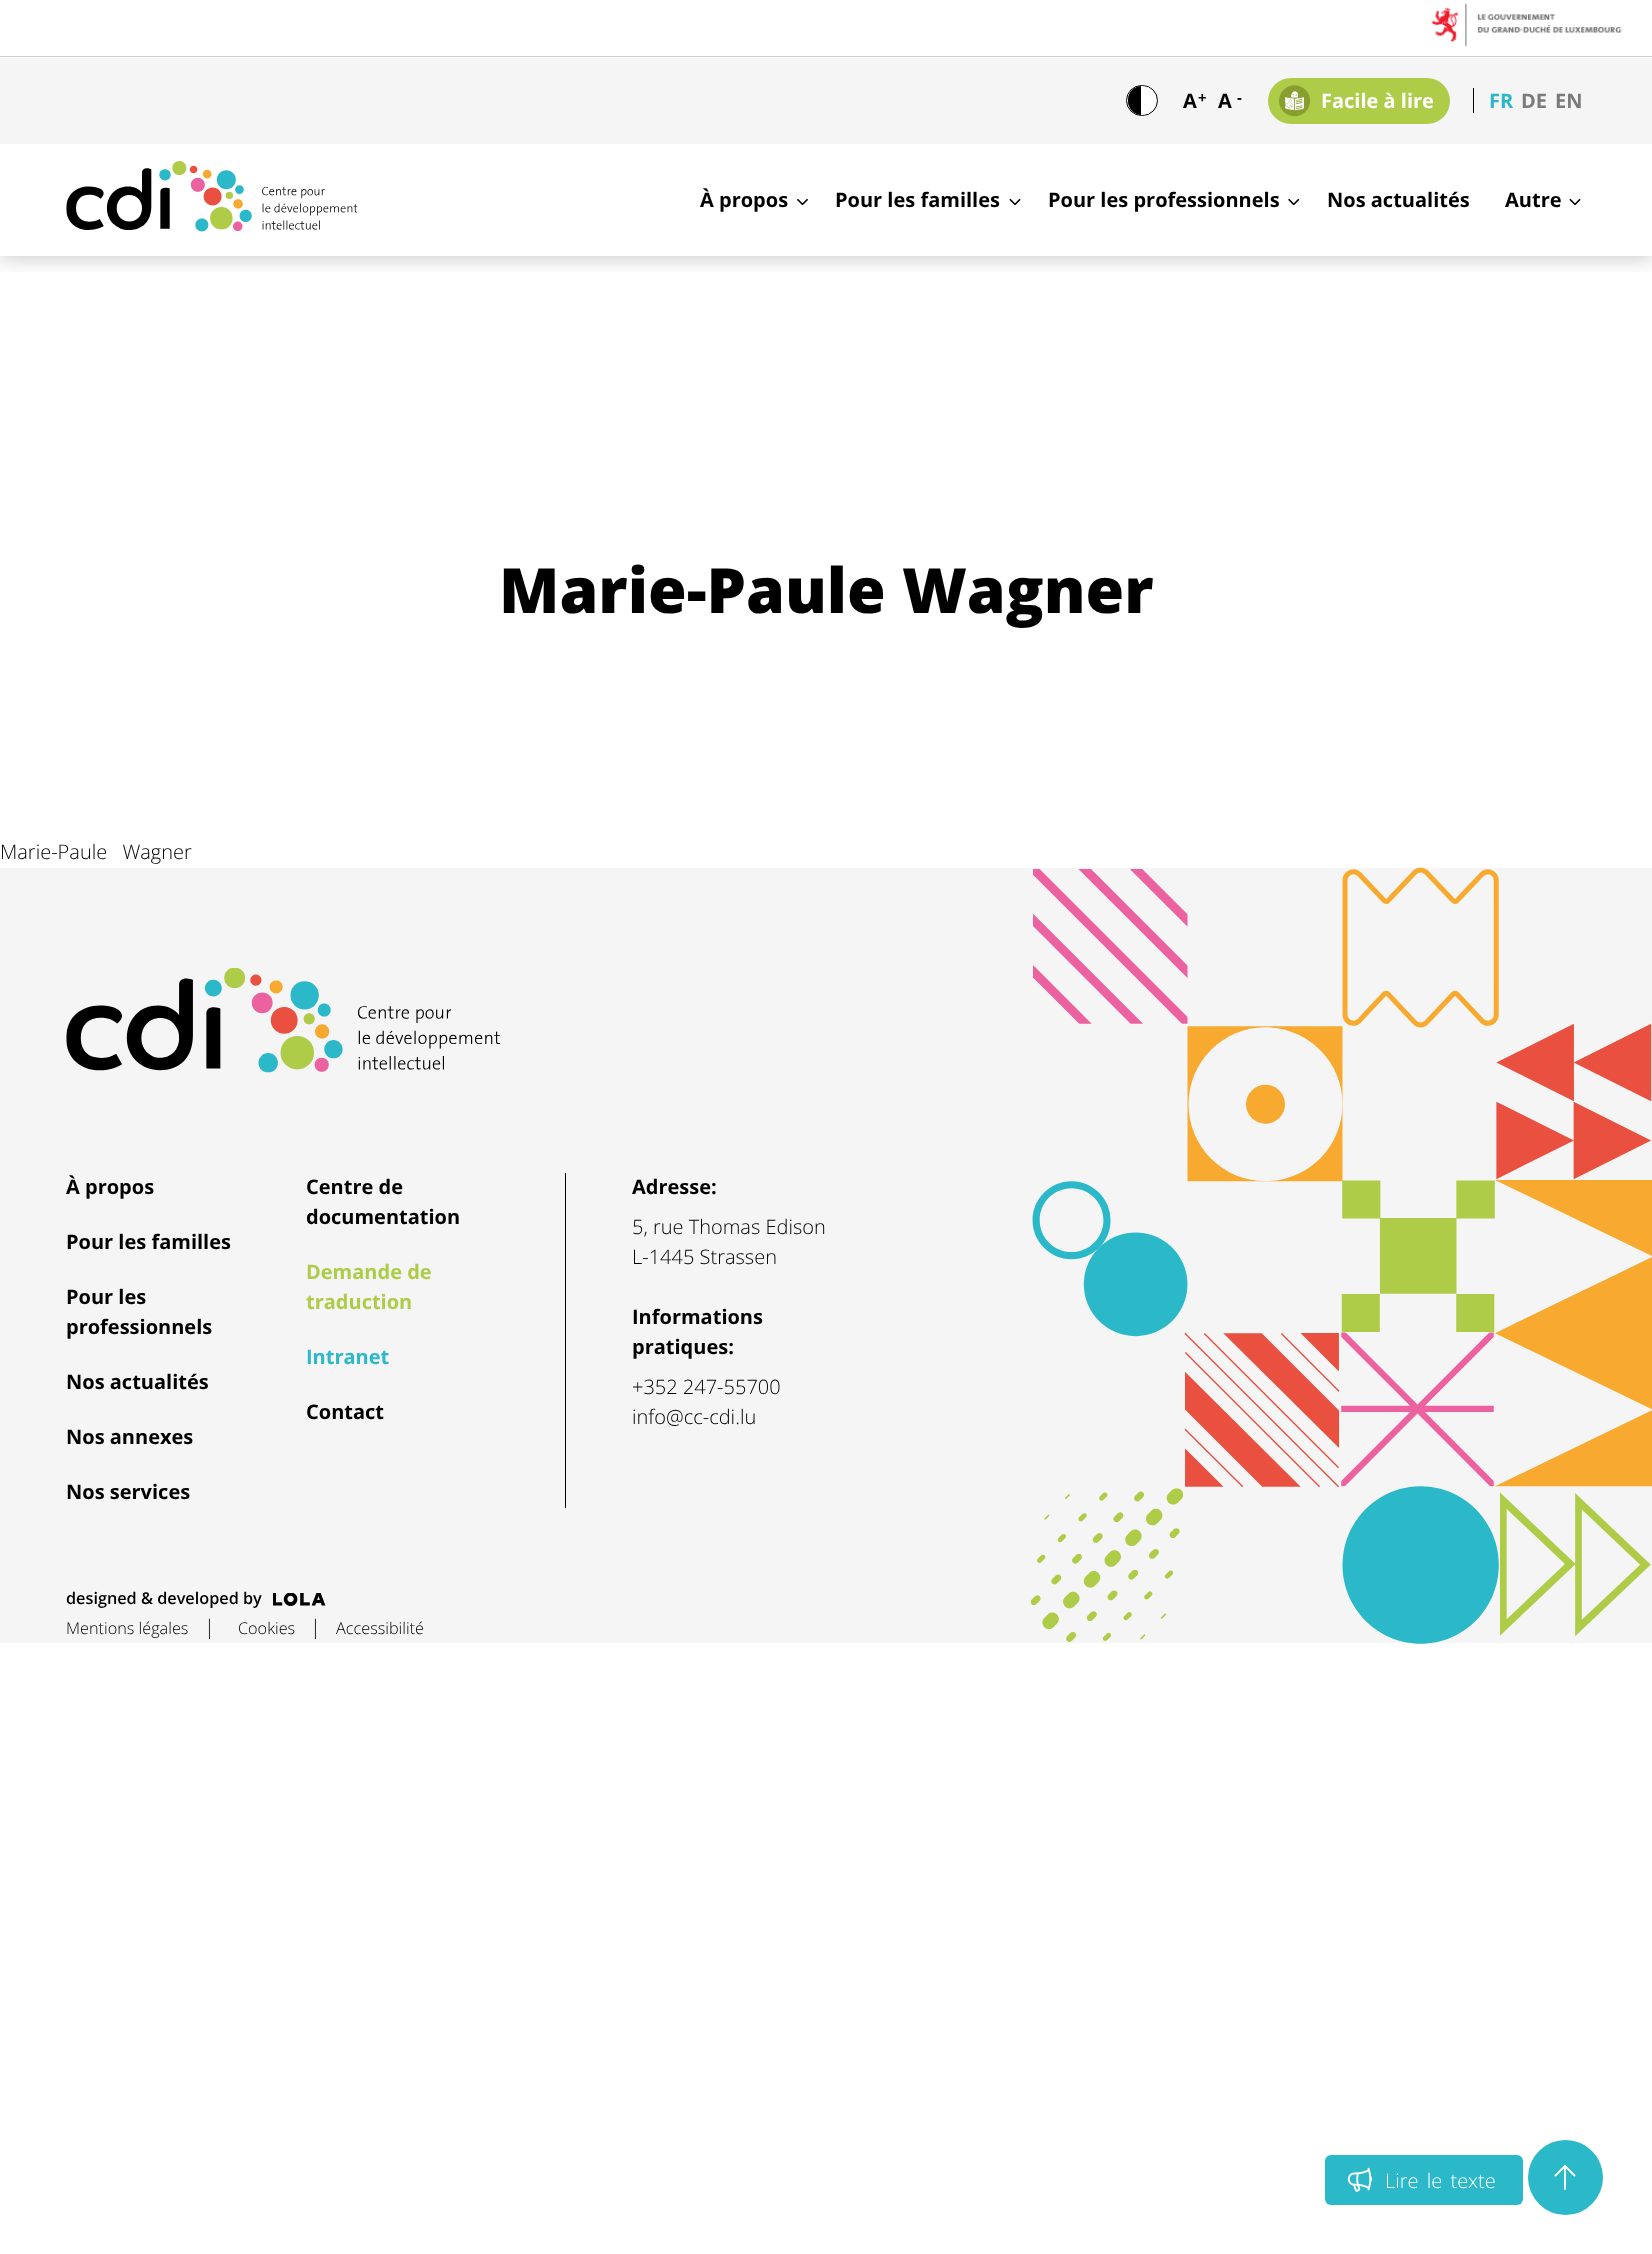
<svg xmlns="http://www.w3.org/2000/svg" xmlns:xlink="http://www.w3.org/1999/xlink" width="1652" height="2254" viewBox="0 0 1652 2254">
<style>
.cls-1{font:bold 20px Open Sans;fill:#000000}
.cls-2{font:bold 15px Open Sans;fill:#000000}
.cls-3{font:bold 20px Open Sans;fill:#ffffff}
.cls-4{font:bold 20px Open Sans;fill:#2bb8c9}
.cls-5{font:bold 20px Open Sans;fill:#7b7b7b}
.cls-6{font:800 62.5px Open Sans;fill:#000000}
.cls-7{font:300 20px Open Sans;fill:#000000}
.cls-8{font:bold 20px Open Sans;fill:#aecc48}
.cls-9{font:600 16.25px Open Sans;fill:#000000}
.cls-10{font:300 16.25px Open Sans;fill:#000000}
.cls-11{font:300 20px Open Sans;fill:#ffffff}
</style>
<defs>
<clipPath id="clip1"><rect x="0" y="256" width="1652" height="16"/></clipPath>
<clipPath id="clip2"><rect x="1128" y="86" width="28" height="29" rx="14"/></clipPath>
</defs>
<rect width="100%" height="100%" fill="#ffffff"/>
<rect fill="#cccaca" x="0" y="56" width="1652" height="1"/>
<image xlink:href="image0.png" x="1431" y="3" width="191" height="44"/>
<g clip-path="url(#clip1)">
<rect fill="#000000" fill-opacity="0.2" filter="blur(10px)" x="0" y="146" width="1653" height="113"/>
</g>
<rect fill="#f5f5f5" x="0" y="58" width="1652" height="86"/>
<rect fill="none" stroke="#000000" x="1126.5" y="85.5" width="31" height="30" rx="15"/>
<g clip-path="url(#clip2)">
<rect fill="#000000" x="1128" y="86" width="13" height="29"/>
<path fill="#ffffff" d="M1141 86H1142C1149.5 86 1156 92.5 1156 100V101C1156 108.5 1149.5 115 1142 115H1141Z"/>
</g>
<rect fill="#aecc48" x="1268" y="78" width="182" height="46" rx="23"/>
<image xlink:href="image1.png" x="1279" y="85" width="31" height="32"/>
<rect fill="#000000" x="1473" y="88" width="1" height="25"/>
<image xlink:href="image2.png" x="66" y="161" width="292" height="71"/>
<image xlink:href="image3.png" x="797" y="199" width="11" height="7"/>
<image xlink:href="image4.png" x="1009" y="199" width="12" height="7"/>
<image xlink:href="image5.png" x="1288" y="199" width="12" height="7"/>
<image xlink:href="image4.png" x="1569" y="199" width="12" height="7"/>
<rect fill="#f5f5f5" x="0" y="868" width="1652" height="775"/>
<image xlink:href="image6.png" x="66" y="968" width="434" height="105"/>
<rect fill="#000000" x="565" y="1173" width="1" height="335"/>
<image xlink:href="image7.png" x="1030" y="867" width="622" height="777"/>
<image xlink:href="image8.png" x="273" y="1593" width="53" height="13"/>
<rect fill="#2bb8c9" x="1325" y="2155" width="198" height="50" rx="6"/>
<image xlink:href="image9.png" x="1347" y="2167" width="26" height="25"/>
<circle fill="#2bb8c9" cx="1565.5" cy="2177.5" r="37.5"/>
<path fill="none" stroke="#ffffff" stroke-width="1.9" stroke-linecap="round" stroke-linejoin="round" d="M1555.5 2175.5L1565 2166M1565 2166L1574.5 2175.5M1565 2166V2189"/>
<text class="cls-1" x="1183" y="108">A</text>
<text class="cls-2" x="1198" y="103">+</text>
<text class="cls-1" x="1218" y="108">A</text>
<text class="cls-2" x="1237" y="103">-</text>
<text class="cls-3" x="1321" y="108">Facile à lire</text>
<text class="cls-4" x="1489" y="108">FR</text>
<text class="cls-5" x="1521" y="108">DE</text>
<text class="cls-5" x="1555" y="108">EN</text>
<text class="cls-1" x="700" y="207">À propos</text>
<text class="cls-1" x="835" y="207">Pour les familles</text>
<text class="cls-1" x="1048" y="207">Pour les professionnels</text>
<text class="cls-1" x="1327" y="207">Nos actualités</text>
<text class="cls-1" x="1505" y="207">Autre</text>
<text class="cls-6" x="499" y="613">Marie-Paule Wagner</text>
<text class="cls-7" x="0" y="859" word-spacing="10">Marie-Paule Wagner</text>
<text class="cls-1" x="66" y="1194">À propos</text>
<text class="cls-1" x="66" y="1249">Pour les familles</text>
<text class="cls-1"><tspan x="66" y="1304">Pour les</tspan><tspan x="66" y="1334">professionnels</tspan></text>
<text class="cls-1" x="66" y="1389">Nos actualités</text>
<text class="cls-1" x="66" y="1444">Nos annexes</text>
<text class="cls-1" x="66" y="1499">Nos services</text>
<text class="cls-1"><tspan x="306" y="1194">Centre de</tspan><tspan x="306" y="1224">documentation</tspan></text>
<text class="cls-8"><tspan x="306" y="1279">Demande de</tspan><tspan x="306" y="1309">traduction</tspan></text>
<text class="cls-4" x="306" y="1364">Intranet</text>
<text class="cls-1" x="306" y="1419">Contact</text>
<text class="cls-1" x="632" y="1194">Adresse:</text>
<text class="cls-7"><tspan x="632" y="1234">5, rue Thomas Edison</tspan><tspan x="632" y="1264">L-1445 Strassen</tspan></text>
<text class="cls-1"><tspan x="632" y="1324">Informations</tspan><tspan x="632" y="1354">pratiques:</tspan></text>
<text class="cls-7"><tspan x="632" y="1394">+352 247-55700</tspan><tspan x="632" y="1424">info@cc-cdi.lu</tspan></text>
<text class="cls-9" x="66" y="1604">designed &amp; developed by</text>
<text class="cls-10" x="66" y="1634">Mentions légales</text>
<text class="cls-7" x="204" y="1634">|</text>
<text class="cls-10" x="238" y="1634">Cookies</text>
<text class="cls-7" x="310" y="1634">|</text>
<text class="cls-10" x="336" y="1634">Accessibilité</text>
<text class="cls-11" x="1385" y="2188" word-spacing="3">Lire le texte</text>
</svg>
